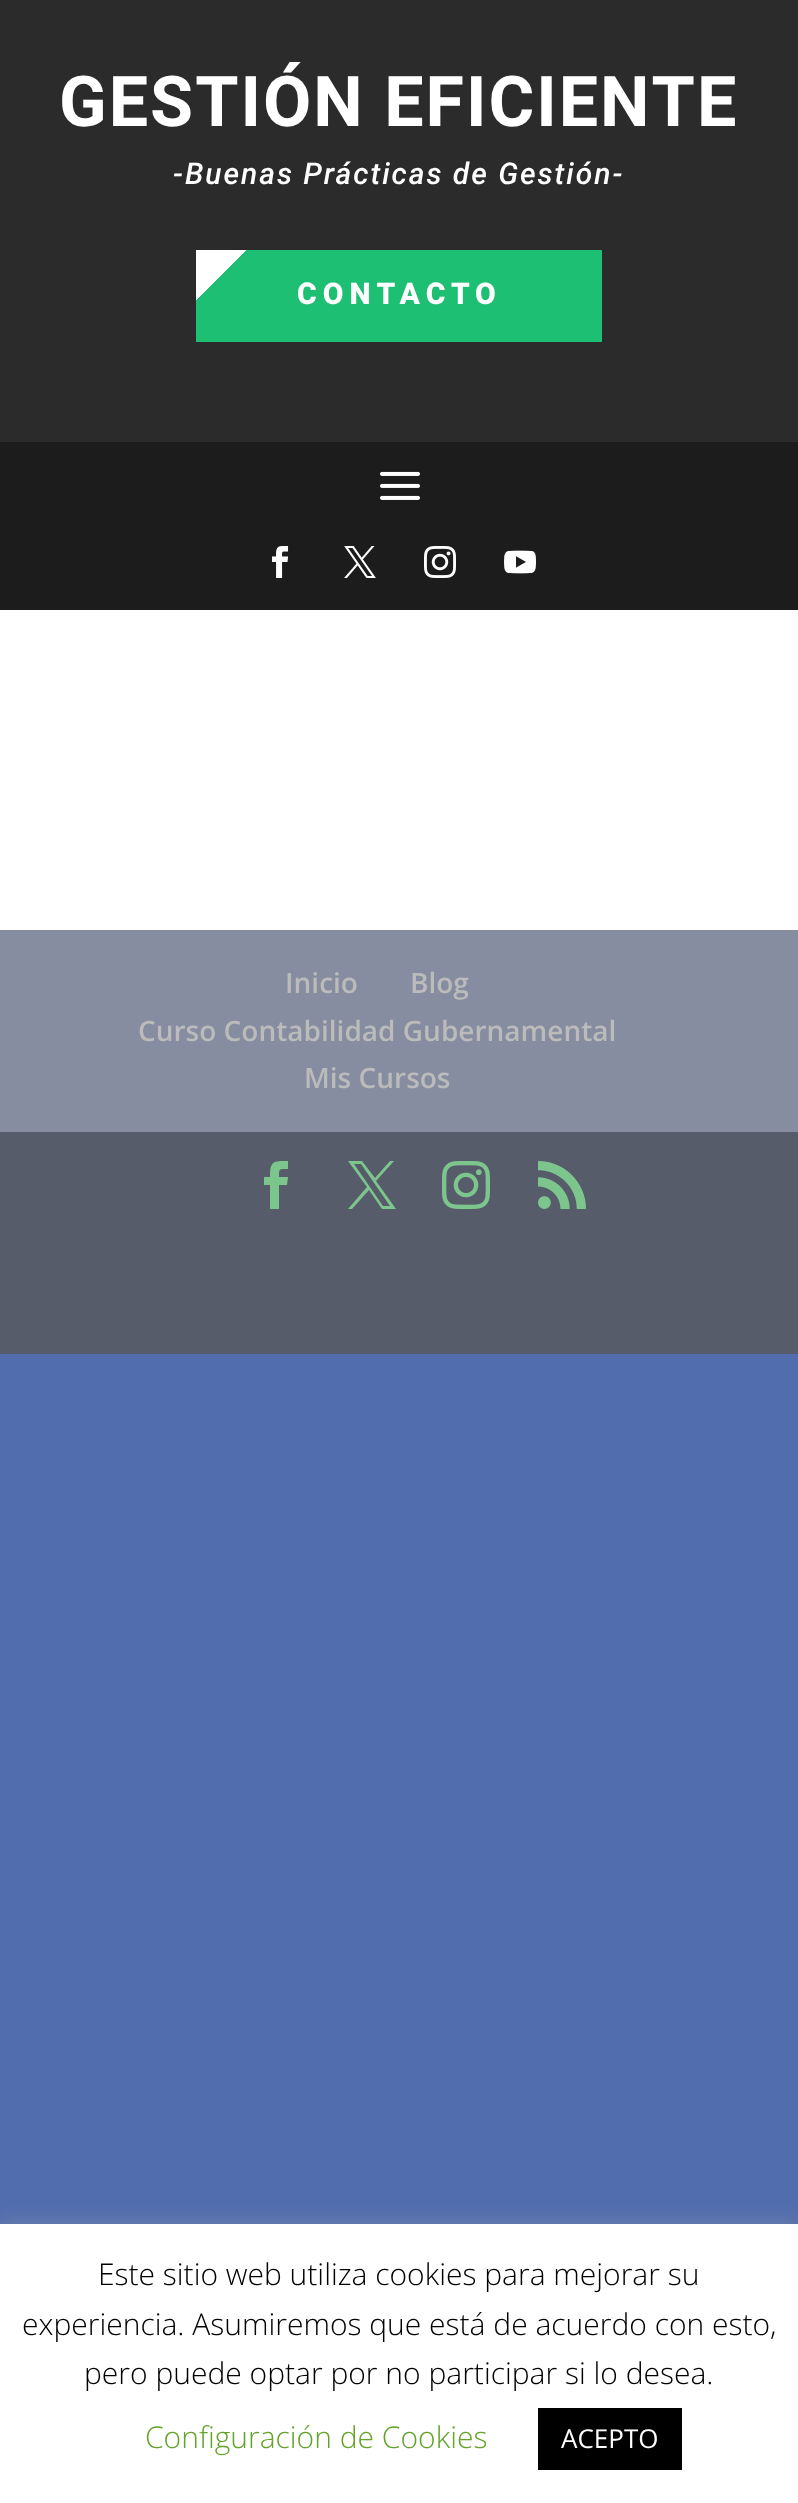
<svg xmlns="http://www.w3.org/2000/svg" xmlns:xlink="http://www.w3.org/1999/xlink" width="798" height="2503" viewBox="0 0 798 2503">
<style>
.cls-1{font:bold 70px Heebo;letter-spacing:2px;fill:#ffffff}
.cls-2{font:italic 500 30px Roboto;letter-spacing:2px;fill:#ffffff}
.cls-3{font:800 30px Heebo;letter-spacing:6px;fill:#ffffff}
.cls-4{font:600 28px Open Sans;fill:#bbbbbb}
.cls-5{font:300 30px Open Sans;fill:#000000}
.cls-6{font:300 30px Open Sans;fill:#62a329}
.cls-7{font:26px Open Sans;fill:#ffffff}
</style>
<defs>
<linearGradient id="g1" gradientUnits="userSpaceOnUse" x1="275" y1="172" x2="524" y2="421"><stop offset="0.1" stop-color="#ffffff"/><stop offset="0.1" stop-color="#1dbf73"/></linearGradient>
</defs>
<rect width="100%" height="100%" fill="#516dad"/>
<rect fill="#2b2b2b" x="0" y="0" width="798" height="442"/>
<rect fill="url(#g1)" x="196" y="250" width="406" height="92"/>
<rect fill="#1c1c1c" x="0" y="442" width="798" height="168"/>
<image xlink:href="image0.png" x="380" y="471" width="40" height="29"/>
<image xlink:href="image1.png" x="272" y="546" width="17" height="32"/>
<image xlink:href="image2.png" x="344" y="546" width="32" height="32"/>
<image xlink:href="image3.png" x="424" y="546" width="32" height="32"/>
<image xlink:href="image4.png" x="504" y="550" width="32" height="24"/>
<rect fill="#ffffff" x="0" y="610" width="798" height="320"/>
<rect fill="#868da0" x="0" y="930" width="798" height="202"/>
<rect fill="#575c6a" x="0" y="1132" width="798" height="222"/>
<path fill="#7cc68d" d="M270 1209H279V1185H287L288 1177H279C279 1168 279 1169 288 1169V1161C273 1161 270 1161 270 1177H264V1185H270Z"/>
<path fill="#7cc68d" d="M348 1161L367 1187L348 1209H352L369 1190L382 1209H396L376 1181L394 1161H390L375 1178L362 1161ZM354 1164H361L390 1206H383Z"/>
<image xlink:href="image5.png" x="442" y="1161" width="48" height="48"/>
<image xlink:href="image6.png" x="538" y="1161" width="48" height="48"/>
<rect fill="#acabab" fill-opacity="0.3" filter="blur(10px)" x="0" y="2222" width="798" height="280"/>
<rect fill="#ffffff" x="0" y="2224" width="798" height="279"/>
<rect fill="#000000" x="538" y="2408" width="144" height="62"/>
<text class="cls-1" x="59" y="126">GESTIÓN EFICIENTE</text>
<text class="cls-2" x="173" y="184">-Buenas Prácticas de Gestión-</text>
<text class="cls-3" x="297" y="304">CONTACTO</text>
<text class="cls-4" x="285" y="993">Inicio</text>
<text class="cls-4" x="410" y="993">Blog</text>
<text class="cls-4" x="138" y="1041">Curso Contabilidad Gubernamental</text>
<text class="cls-4" x="304" y="1088">Mis Cursos</text>
<text class="cls-5" x="98" y="2285">Este sitio web utiliza cookies para mejorar su</text>
<text class="cls-5" x="22" y="2335">experiencia. Asumiremos que está de acuerdo con esto,</text>
<text class="cls-5" x="84" y="2384">pero puede optar por no participar si lo desea.</text>
<text class="cls-6" x="145" y="2448">Configuración de Cookies</text>
<text class="cls-7" x="561" y="2448">ACEPTO</text>
</svg>
